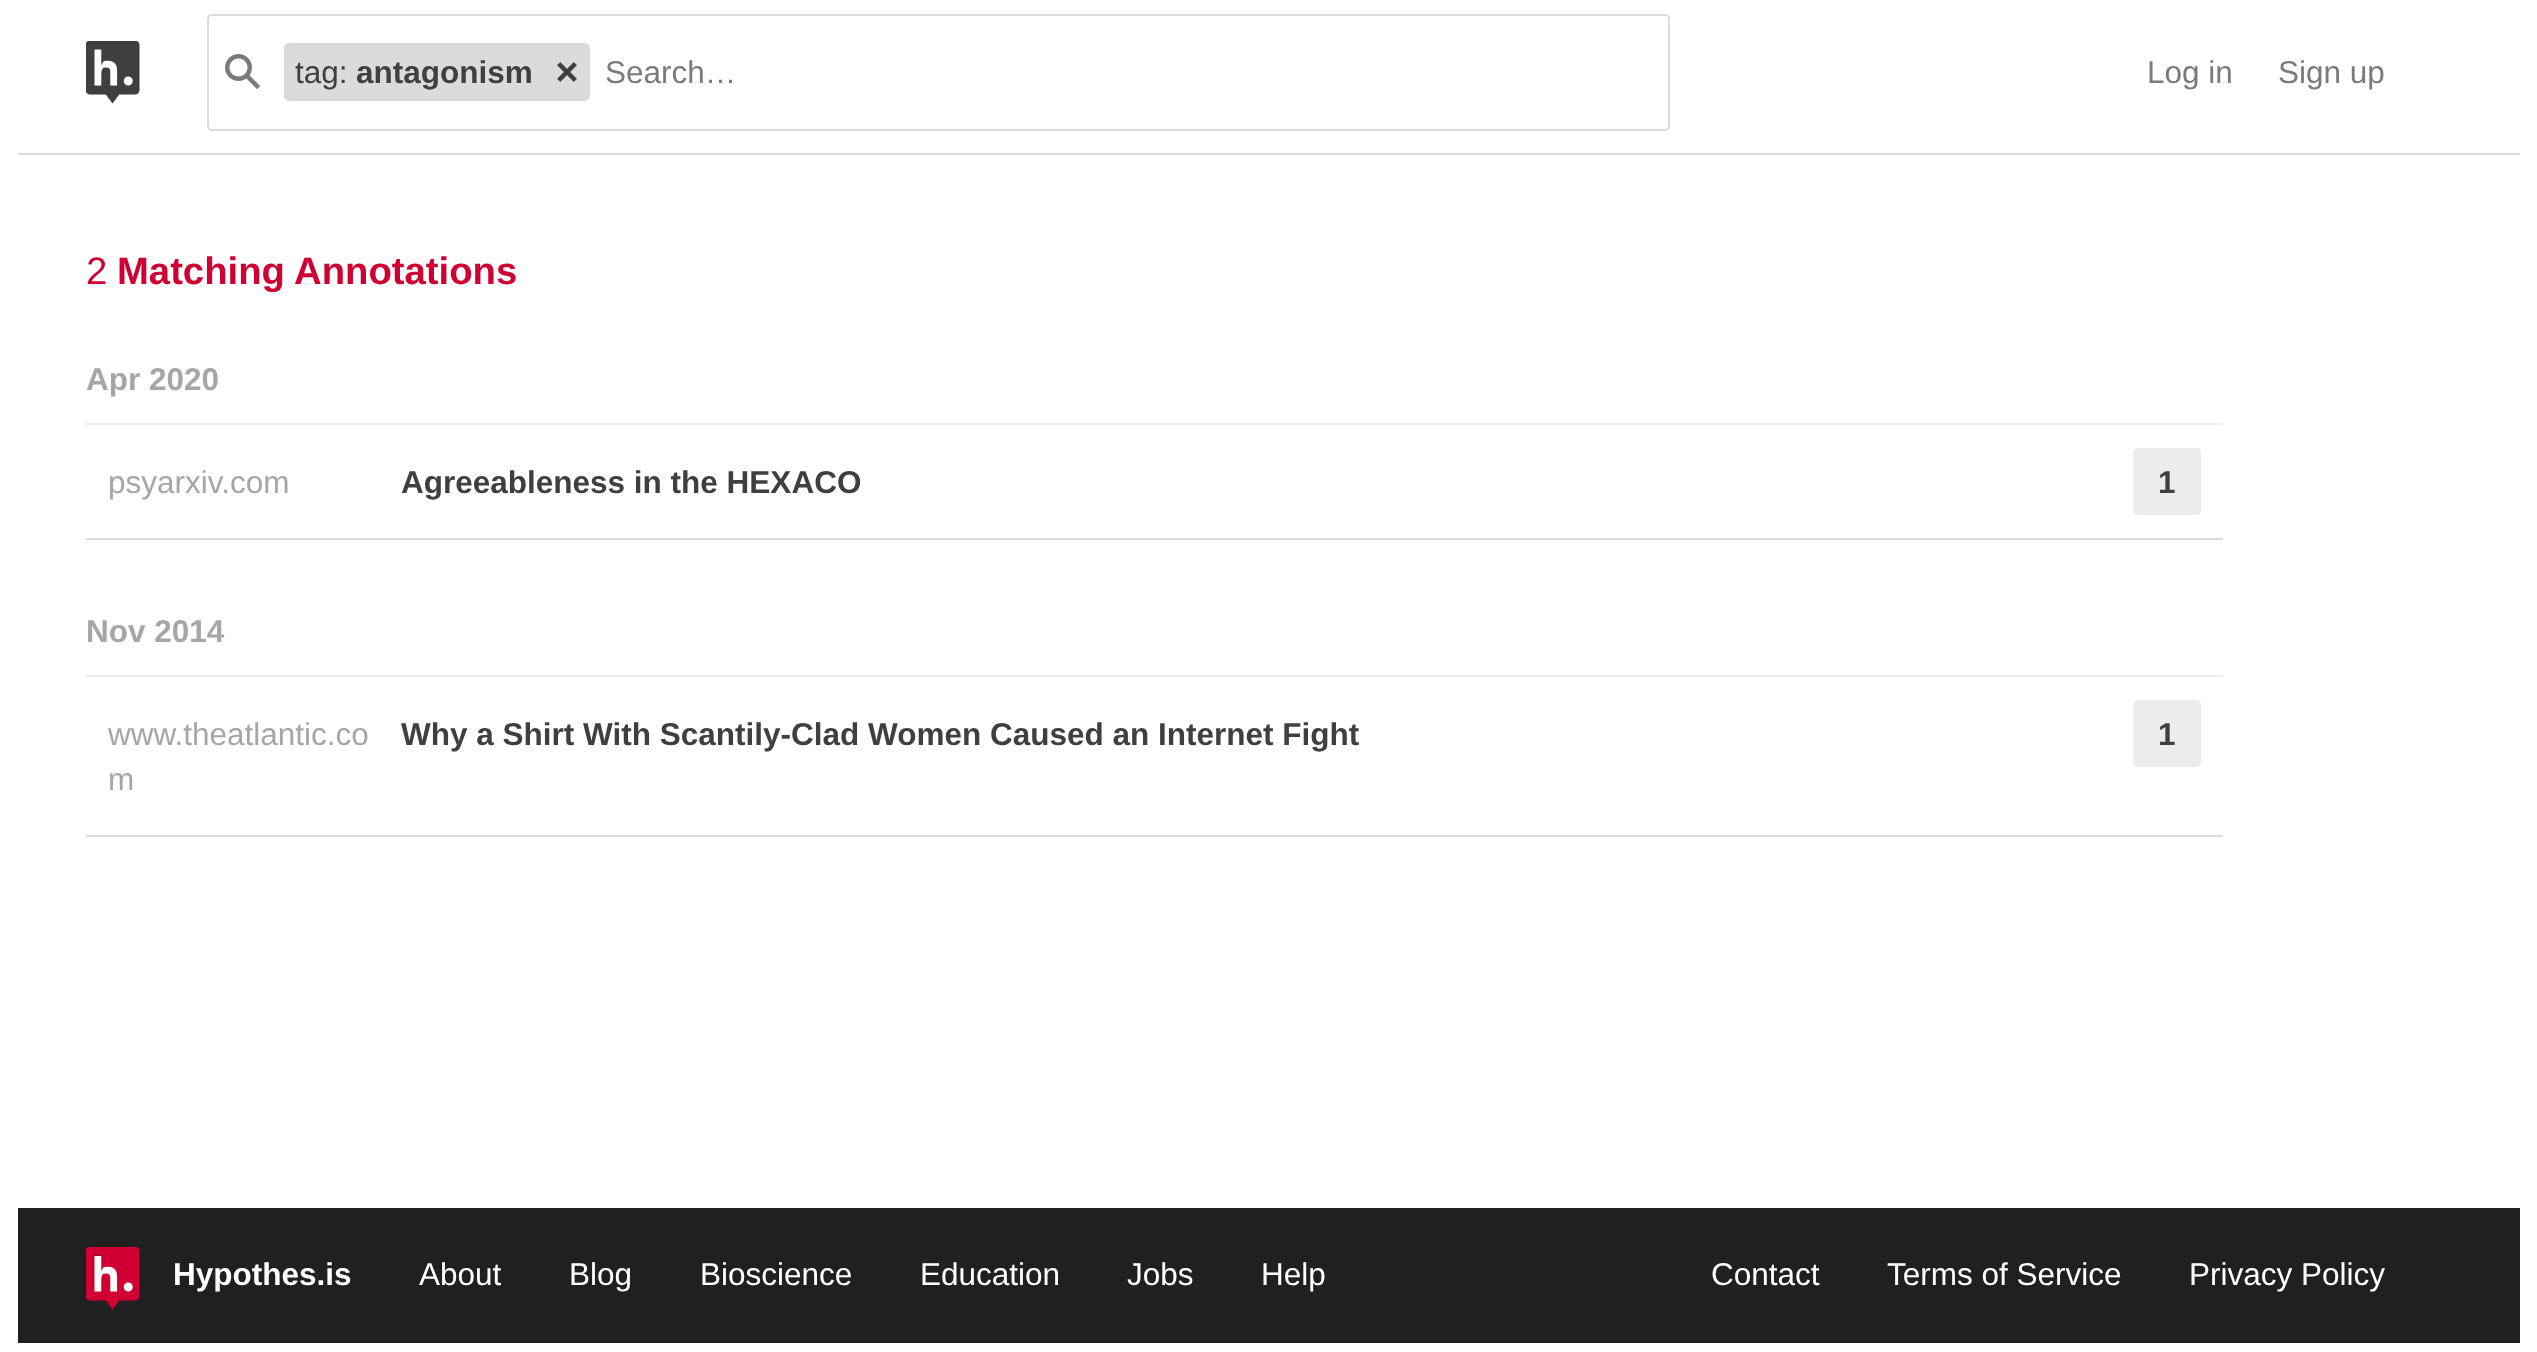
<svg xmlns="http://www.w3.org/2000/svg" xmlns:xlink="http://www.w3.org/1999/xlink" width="2537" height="1352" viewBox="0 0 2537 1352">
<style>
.cls-1{font:31.5px Liberation Sans;fill:#3f3f3f}
.cls-2{font:bold 31.5px Liberation Sans;fill:#3f3f3f}
.cls-3{font:31.5px Liberation Sans;fill:#7a7a7a}
.cls-4{font:38.25px Liberation Sans;fill:#d00032}
.cls-5{font:bold 38.25px Liberation Sans;fill:#d00032}
.cls-6{font:bold 31.5px Liberation Sans;fill:#a6a6a6}
.cls-7{font:31.5px Liberation Sans;fill:#a6a6a6}
.cls-8{font:bold 31.5px Liberation Sans;fill:#ffffff}
.cls-9{font:31.5px Liberation Sans;fill:#ffffff}
</style>
<rect width="100%" height="100%" fill="#ffffff"/>
<rect fill="#dbdbdb" x="18" y="153" width="2502" height="2"/>
<image xlink:href="image0.png" x="86" y="41" width="54" height="63"/>
<rect fill="none" stroke="#dbdbdb" stroke-width="2" x="208" y="15" width="1461" height="115" rx="4"/>
<image xlink:href="image1.png" x="225" y="54" width="36" height="36"/>
<rect fill="#dbdbdb" x="284" y="43" width="306" height="58" rx="5"/>
<image xlink:href="image2.png" x="557" y="62" width="20" height="20"/>
<rect fill="#ececec" x="86" y="423" width="2137" height="2"/>
<rect fill="#dbdbdb" x="86" y="538" width="2137" height="2"/>
<rect fill="#ececec" x="2133" y="448" width="68" height="67" rx="5"/>
<rect fill="#ececec" x="86" y="675" width="2137" height="2"/>
<rect fill="#dbdbdb" x="86" y="835" width="2137" height="2"/>
<rect fill="#ececec" x="2133" y="700" width="68" height="67" rx="5"/>
<rect fill="#202020" x="18" y="1208" width="2502" height="135"/>
<image xlink:href="image3.png" x="86" y="1247" width="54" height="63"/>
<text class="cls-1" x="295" y="83">tag:</text>
<text class="cls-2" x="356" y="83">antagonism</text>
<text class="cls-3" x="605" y="83">Search…</text>
<text class="cls-3" x="2147" y="83">Log in</text>
<text class="cls-3" x="2278" y="83">Sign up</text>
<text class="cls-4" x="86" y="284">2</text>
<text class="cls-5" x="117" y="284">Matching Annotations</text>
<text class="cls-6" x="86" y="390">Apr 2020</text>
<text class="cls-7" x="108" y="493">psyarxiv.com</text>
<text class="cls-2" x="401" y="493">Agreeableness in the HEXACO</text>
<text class="cls-2" x="2158" y="493">1</text>
<text class="cls-6" x="86" y="642">Nov 2014</text>
<text class="cls-7"><tspan x="108" y="745">www.theatlantic.co</tspan><tspan x="108" y="790">m</tspan></text>
<text class="cls-2" x="401" y="745">Why a Shirt With Scantily-Clad Women Caused an Internet Fight</text>
<text class="cls-2" x="2158" y="745">1</text>
<text class="cls-8" x="173" y="1285">Hypothes.is</text>
<text class="cls-9" x="419" y="1285">About</text>
<text class="cls-9" x="569" y="1285">Blog</text>
<text class="cls-9" x="700" y="1285">Bioscience</text>
<text class="cls-9" x="920" y="1285">Education</text>
<text class="cls-9" x="1127" y="1285">Jobs</text>
<text class="cls-9" x="1261" y="1285">Help</text>
<text class="cls-9" x="1711" y="1285">Contact</text>
<text class="cls-9" x="1887" y="1285">Terms of Service</text>
<text class="cls-9" x="2189" y="1285">Privacy Policy</text>
</svg>
